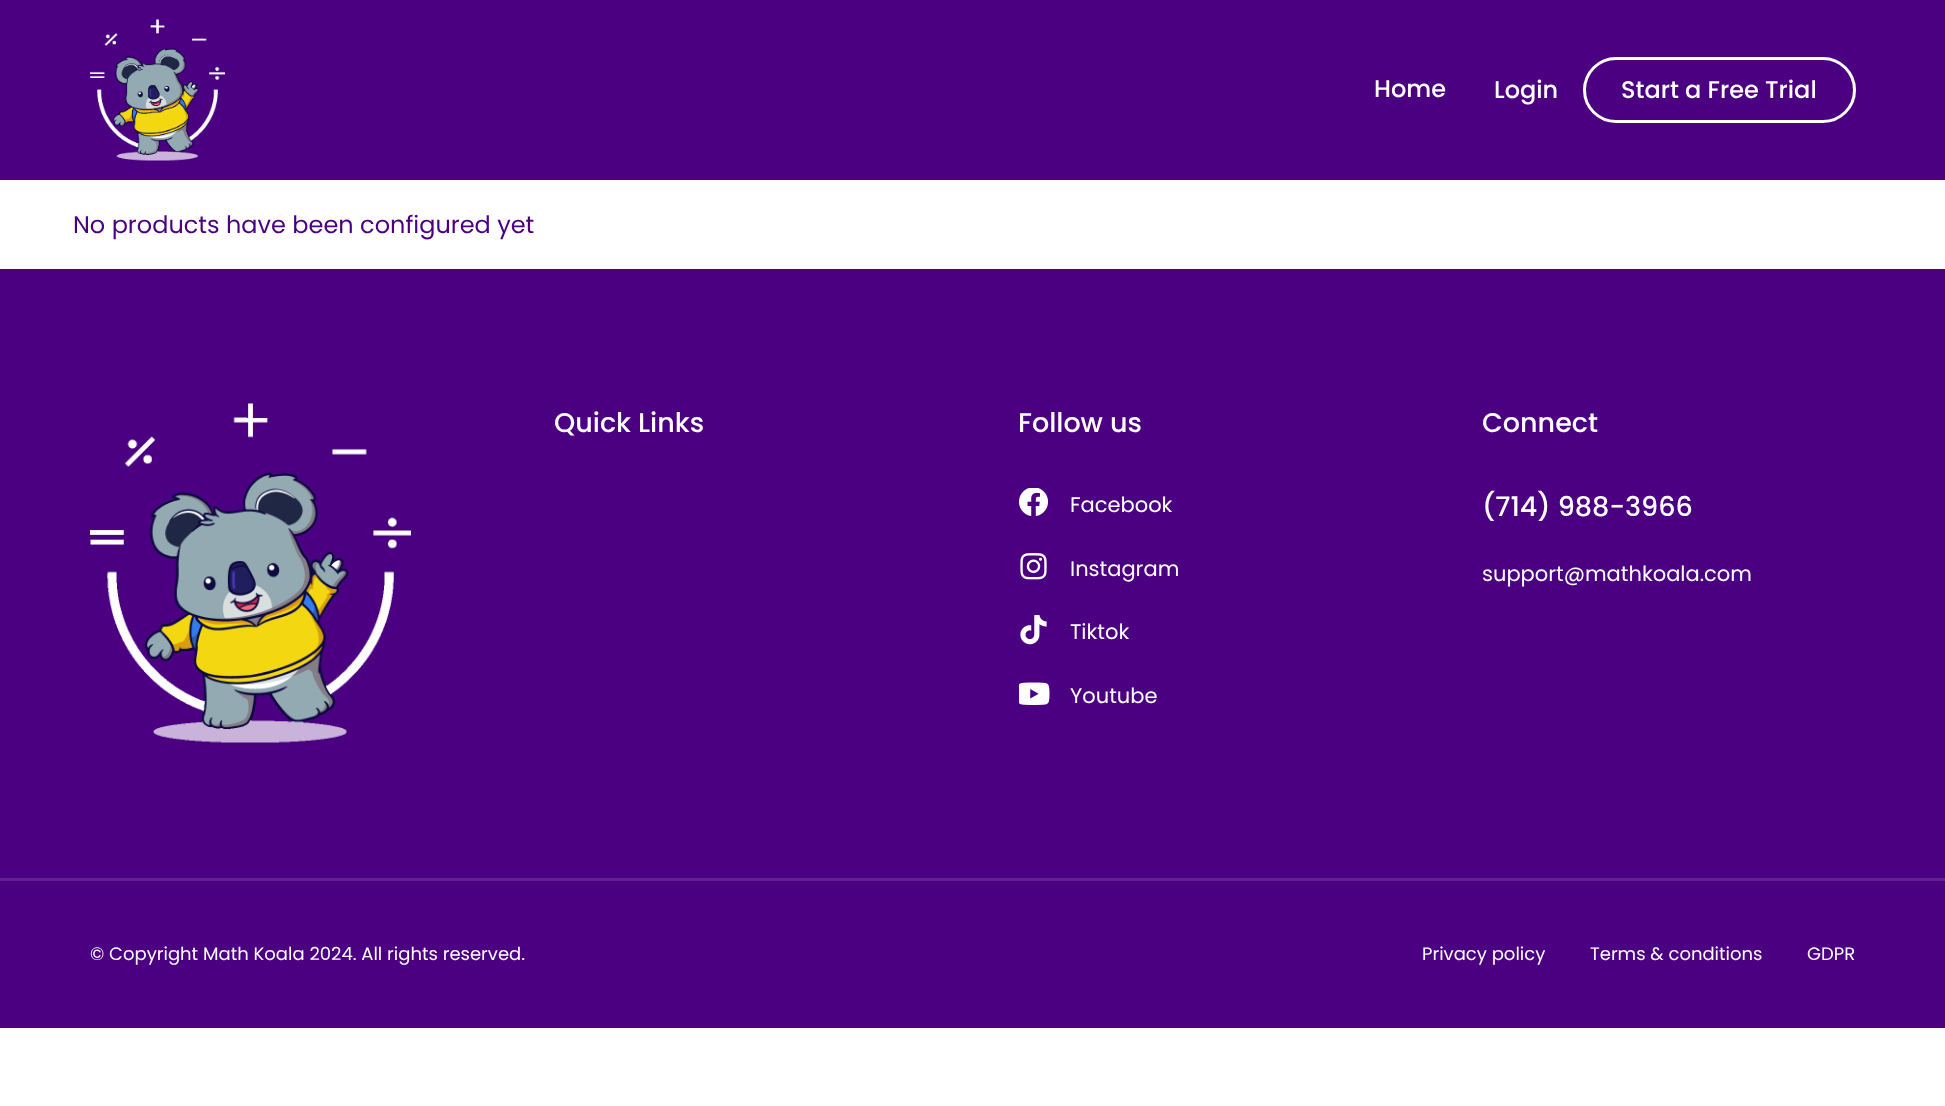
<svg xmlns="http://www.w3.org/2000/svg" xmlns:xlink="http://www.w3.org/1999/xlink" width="1945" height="1106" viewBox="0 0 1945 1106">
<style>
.cls-1{font:500 24px Poppins;fill:#ffffff}
.cls-2{font:24px Poppins;fill:#4b0082}
.cls-3{font:500 27px Poppins;fill:#ffffff}
.cls-4{font:21px Poppins;fill:#ffffff}
.cls-5{font:18px Poppins;fill:#ffffff}
</style>
<rect width="100%" height="100%" fill="#ffffff"/>
<rect fill="#4b0082" x="0" y="0" width="1945" height="180"/>
<image xlink:href="image0.png" x="90" y="19" width="135" height="142"/>
<rect fill="none" stroke="#ffffff" stroke-width="3" x="1584.5" y="58.5" width="270" height="63" rx="31.5"/>
<rect fill="#4b0082" x="0" y="269" width="1945" height="609"/>
<image xlink:href="image1.png" x="90" y="403" width="321" height="340"/>
<image xlink:href="image2.png" x="1019" y="488" width="29" height="28"/>
<image xlink:href="image3.png" x="1020" y="553" width="27" height="27"/>
<image xlink:href="image4.png" x="1020" y="615" width="27" height="30"/>
<image xlink:href="image5.png" x="1019" y="682" width="31" height="23"/>
<rect fill="#4b0082" x="0" y="881" width="1945" height="147"/>
<rect fill="#622192" x="0" y="878" width="1945" height="3"/>
<text class="cls-1" x="1374" y="97">Home</text>
<text class="cls-1" x="1494" y="98">Login</text>
<text class="cls-1" x="1621" y="98">Start a Free Trial</text>
<text class="cls-2" x="73" y="233">No products have been configured yet</text>
<text class="cls-3" x="554" y="432">Quick Links</text>
<text class="cls-3" x="1018" y="432">Follow us</text>
<text class="cls-4" x="1070" y="512">Facebook</text>
<text class="cls-4" x="1070" y="576">Instagram</text>
<text class="cls-4" x="1070" y="639">Tiktok</text>
<text class="cls-4" x="1070" y="703">Youtube</text>
<text class="cls-3" x="1482" y="432">Connect</text>
<text class="cls-3" x="1482" y="516">(714) 988-3966</text>
<text class="cls-4" x="1482" y="581">support@mathkoala.com</text>
<text class="cls-5" x="90" y="960">© Copyright Math Koala 2024. All rights reserved.</text>
<text class="cls-5" x="1422" y="960">Privacy policy</text>
<text class="cls-5" x="1590" y="960">Terms &amp; conditions</text>
<text class="cls-5" x="1807" y="960">GDPR</text>
</svg>
